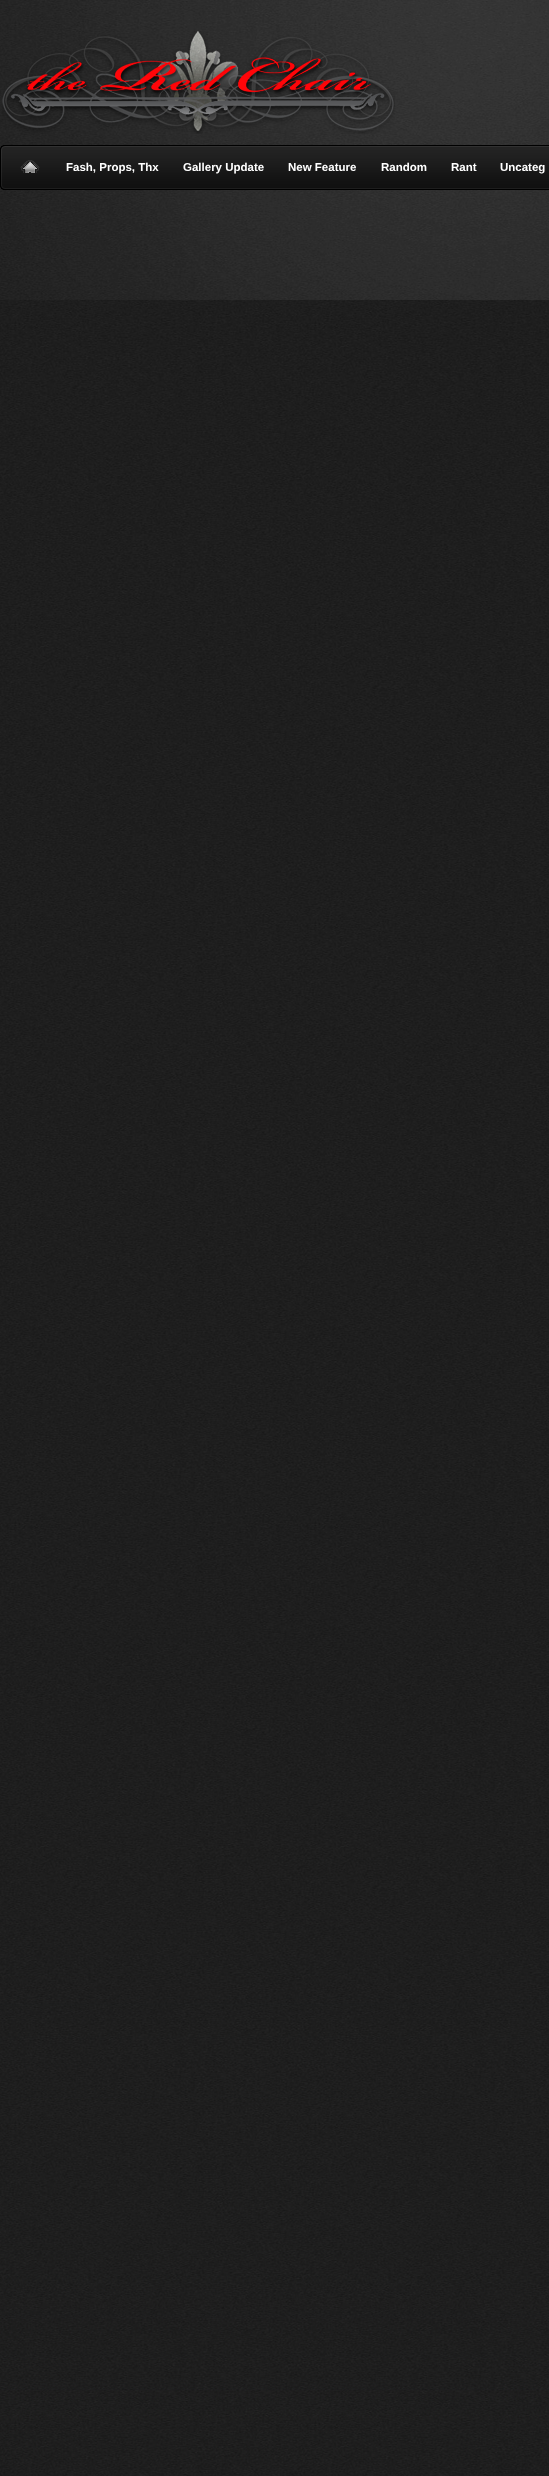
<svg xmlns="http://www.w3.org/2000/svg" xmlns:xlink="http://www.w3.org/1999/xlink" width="549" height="2476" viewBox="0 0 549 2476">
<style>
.cls-1{font:bold 11.5px Liberation Sans;fill:#ffffff}
</style>
<rect width="100%" height="100%" fill="#ffffff"/>
<image xlink:href="image0.png" x="0" y="0" width="549" height="2476"/>
<image xlink:href="image1.png" x="0" y="0" width="549" height="300"/>
<image xlink:href="image2.png" x="2" y="31" width="393" height="103"/>
<image xlink:href="image3.png" x="0" y="145" width="549" height="45"/>
<image xlink:href="image4.png" x="20" y="160" width="20" height="13"/>
<text class="cls-1" x="66" y="171">Fash, Props, Thx</text>
<text class="cls-1" x="183" y="171">Gallery Update</text>
<text class="cls-1" x="288" y="171">New Feature</text>
<text class="cls-1" x="381" y="171">Random</text>
<text class="cls-1" x="451" y="171">Rant</text>
<text class="cls-1" x="500" y="171">Uncateg</text>
</svg>
